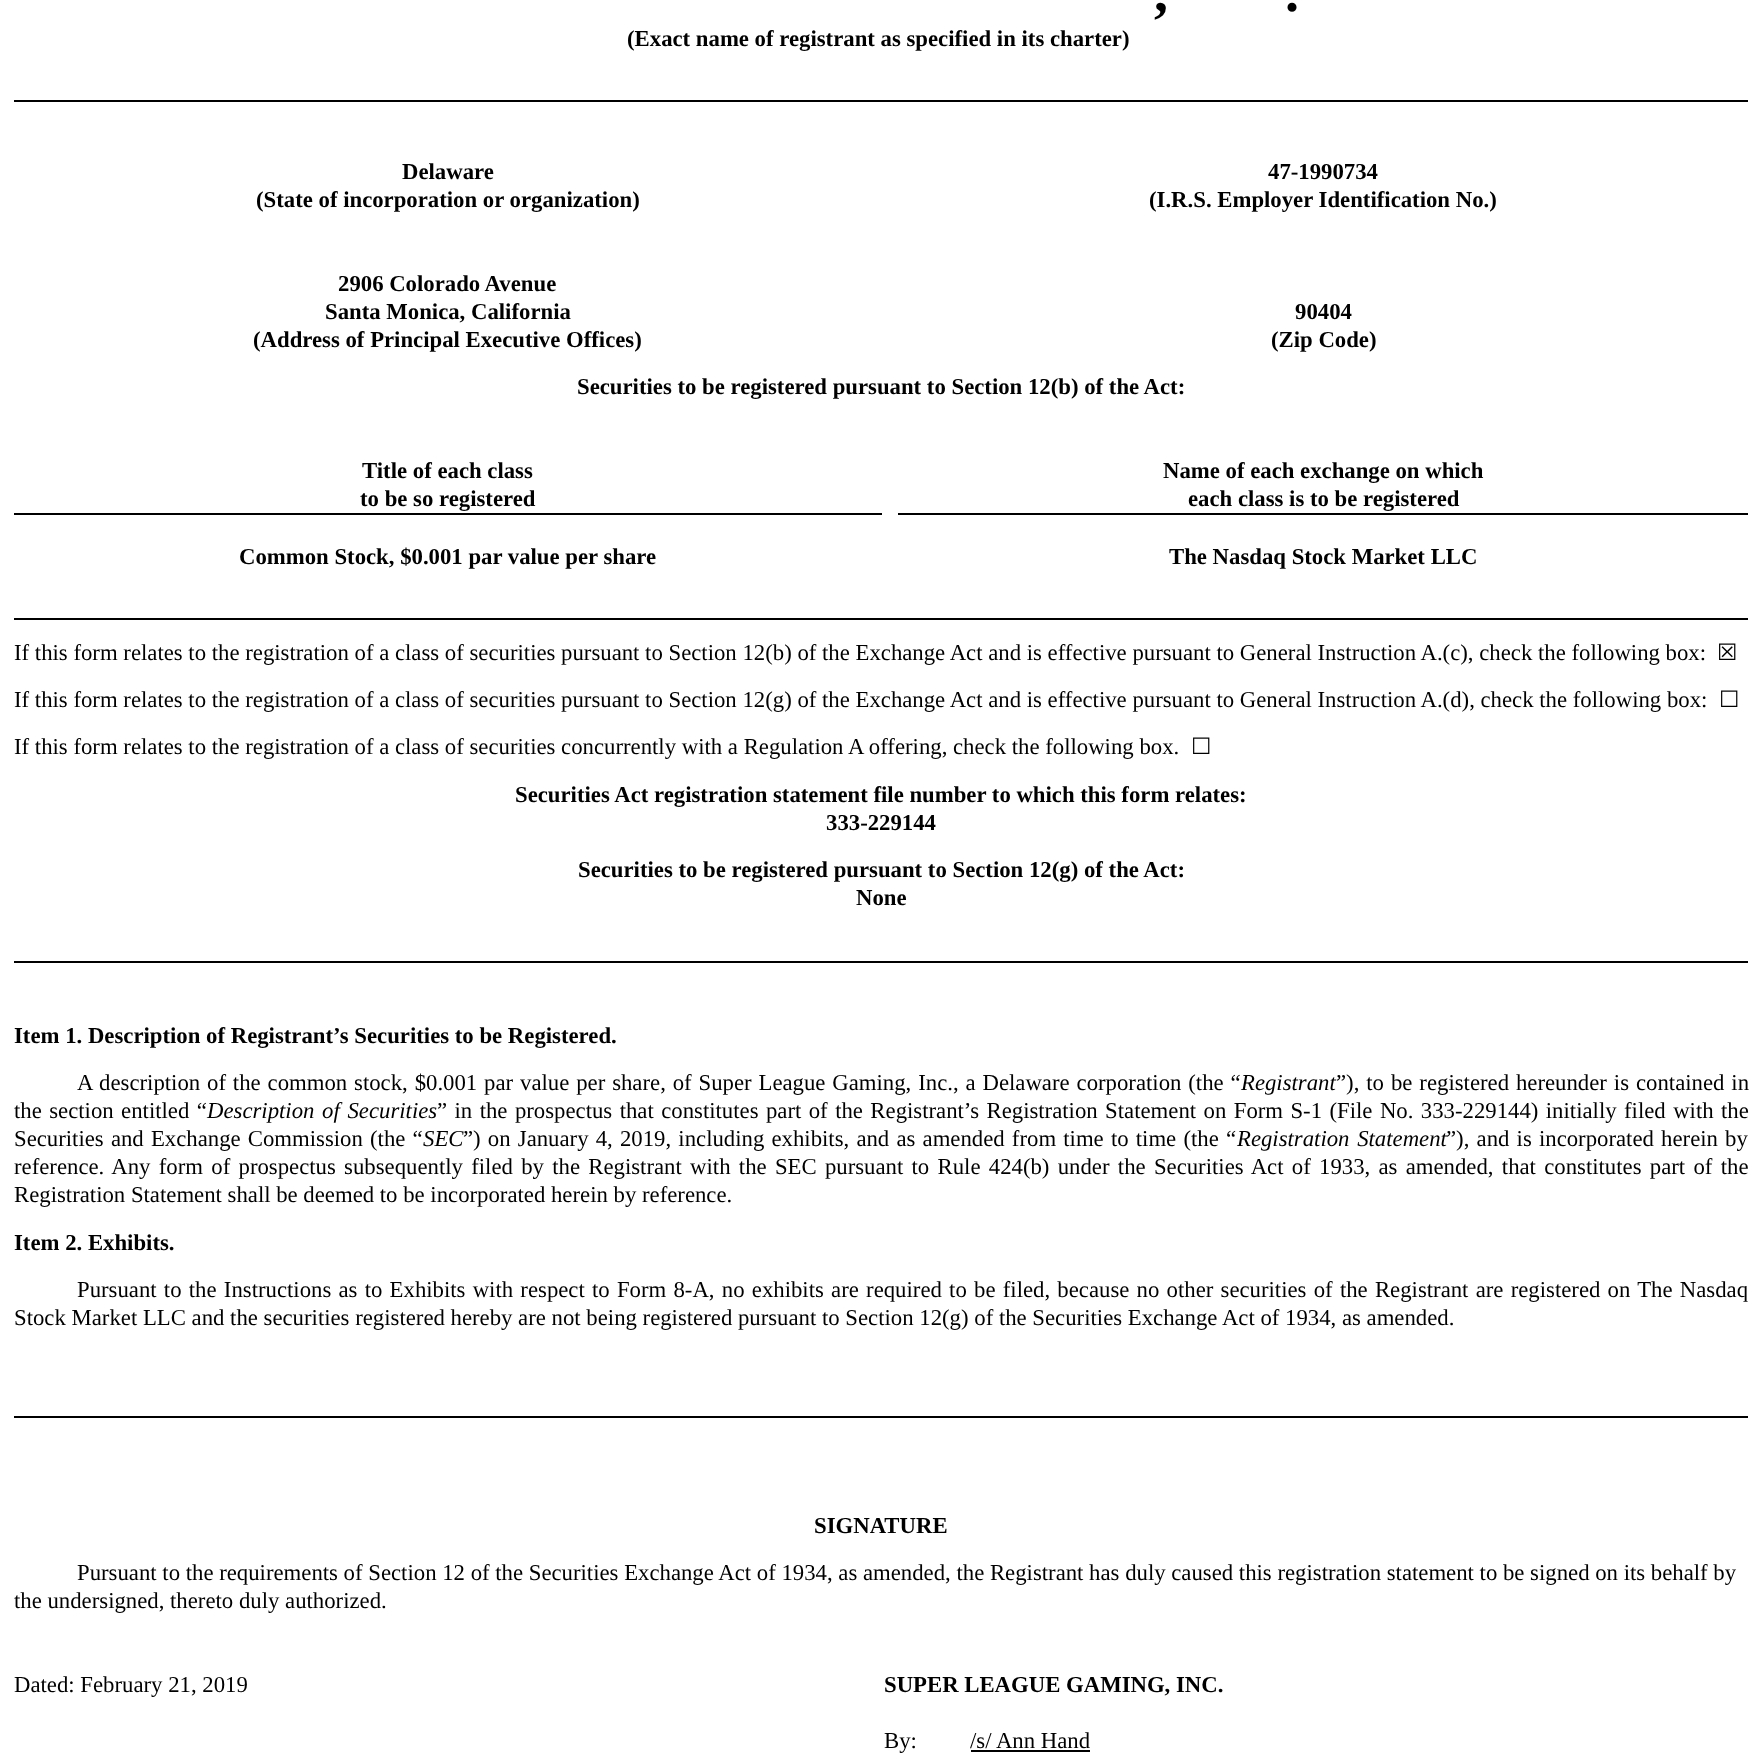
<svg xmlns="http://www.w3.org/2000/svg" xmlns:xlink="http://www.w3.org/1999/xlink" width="1761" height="1759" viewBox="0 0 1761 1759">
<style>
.cls-1{font:bold 56px Liberation Serif;fill:#000000}
.cls-2{font:bold 22.75px Liberation Serif;fill:#000000}
.cls-3{font:22.75px Liberation Serif;fill:#000000}
.cls-4{font:22.75px DejaVu Sans;fill:#000000}
.cls-5{font:italic 22.75px Liberation Serif;fill:#000000}
</style>
<rect width="100%" height="100%" fill="#ffffff"/>
<rect fill="#000000" x="14" y="100" width="1734" height="2"/>
<rect fill="#000000" x="14" y="513" width="868" height="2"/>
<rect fill="#000000" x="898" y="513" width="850" height="2"/>
<rect fill="#000000" x="14" y="618" width="1734" height="2"/>
<rect fill="#000000" x="14" y="961" width="1734" height="2"/>
<rect fill="#000000" x="14" y="1416" width="1734" height="2"/>
<rect fill="#000000" x="971" y="1750" width="119" height="2"/>
<text class="cls-1" x="1154" y="11">,</text>
<text class="cls-1" x="1285" y="11">.</text>
<text class="cls-2" x="627" y="46">(Exact name of registrant as specified in its charter)</text>
<text class="cls-2" x="402" y="179">Delaware</text>
<text class="cls-2" x="1268" y="179">47-1990734</text>
<text class="cls-2" x="256" y="207">(State of incorporation or organization)</text>
<text class="cls-2" x="1149" y="207">(I.R.S. Employer Identification No.)</text>
<text class="cls-2" x="338" y="291">2906 Colorado Avenue</text>
<text class="cls-2" x="325" y="319">Santa Monica, California</text>
<text class="cls-2" x="1295" y="319">90404</text>
<text class="cls-2" x="253" y="347">(Address of Principal Executive Offices)</text>
<text class="cls-2" x="1271" y="347">(Zip Code)</text>
<text class="cls-2" x="577" y="394">Securities to be registered pursuant to Section 12(b) of the Act:</text>
<text class="cls-2" x="362" y="478">Title of each class</text>
<text class="cls-2" x="360" y="506">to be so registered</text>
<text class="cls-2" x="1163" y="478">Name of each exchange on which</text>
<text class="cls-2" x="1188" y="506">each class is to be registered</text>
<text class="cls-2" x="239" y="564">Common Stock, $0.001 par value per share</text>
<text class="cls-2" x="1169" y="564">The Nasdaq Stock Market LLC</text>
<text class="cls-3" x="14" y="660">If this form relates to the registration of a class of securities pursuant to Section 12(b) of the Exchange Act and is effective pursuant to General Instruction A.(c), check the following box:</text>
<text class="cls-4" x="1717" y="660">☒</text>
<text class="cls-3" x="14" y="707">If this form relates to the registration of a class of securities pursuant to Section 12(g) of the Exchange Act and is effective pursuant to General Instruction A.(d), check the following box:</text>
<text class="cls-4" x="1719" y="707">☐</text>
<text class="cls-3" x="14" y="754">If this form relates to the registration of a class of securities concurrently with a Regulation A offering, check the following box.</text>
<text class="cls-4" x="1191" y="754">☐</text>
<text class="cls-2" x="515" y="802">Securities Act registration statement file number to which this form relates:</text>
<text class="cls-2" x="826" y="830">333-229144</text>
<text class="cls-2" x="578" y="877">Securities to be registered pursuant to Section 12(g) of the Act:</text>
<text class="cls-2" x="856" y="905">None</text>
<text class="cls-2" x="14" y="1043">Item 1. Description of Registrant’s Securities to be Registered.</text>
<text class="cls-3" x="77" y="1090" word-spacing="1.2">A description of the common stock, $0.001 par value per share, of Super League Gaming, Inc., a Delaware corporation (the “</text>
<text class="cls-5" x="1241" y="1090">Registrant</text>
<text class="cls-3" x="1336" y="1090" word-spacing="1.25">”), to be registered hereunder is contained in</text>
<text class="cls-3" x="14" y="1118" word-spacing="1.75">the section entitled “</text>
<text class="cls-5" x="207" y="1118" word-spacing="2">Description of Securities</text>
<text class="cls-3" x="437" y="1118" word-spacing="1.75">” in the prospectus that constitutes part of the Registrant’s Registration Statement on Form S-1 (File No. 333-229144) initially filed with the</text>
<text class="cls-3" x="14" y="1146" word-spacing="1.5">Securities and Exchange Commission (the “</text>
<text class="cls-5" x="423" y="1146">SEC</text>
<text class="cls-3" x="463" y="1146" word-spacing="1.5">”) on January 4, 2019, including exhibits, and as amended from time to time (the “</text>
<text class="cls-5" x="1237" y="1146" word-spacing="2">Registration Statement</text>
<text class="cls-3" x="1446" y="1146" word-spacing="1.5">”), and is incorporated herein by</text>
<text class="cls-3"><tspan x="14" y="1174" word-spacing="2.6">reference. Any form of prospectus subsequently filed by the Registrant with the SEC pursuant to Rule 424(b) under the Securities Act of 1933, as amended, that constitutes part of the</tspan><tspan x="14" y="1202">Registration Statement shall be deemed to be incorporated herein by reference.</tspan></text>
<text class="cls-2" x="14" y="1250">Item 2. Exhibits.</text>
<text class="cls-3" x="77" y="1297" word-spacing="1.55">Pursuant to the Instructions as to Exhibits with respect to Form 8-A, no exhibits are required to be filed, because no other securities of the Registrant are registered on The Nasdaq</text>
<text class="cls-3" x="14" y="1325">Stock Market LLC and the securities registered hereby are not being registered pursuant to Section 12(g) of the Securities Exchange Act of 1934, as amended.</text>
<text class="cls-2" x="814" y="1533">SIGNATURE</text>
<text class="cls-3" x="77" y="1580">Pursuant to the requirements of Section 12 of the Securities Exchange Act of 1934, as amended, the Registrant has duly caused this registration statement to be signed on its behalf by</text>
<text class="cls-3" x="14" y="1608">the undersigned, thereto duly authorized.</text>
<text class="cls-3" x="14" y="1692">Dated: February 21, 2019</text>
<text class="cls-2" x="884" y="1692">SUPER LEAGUE GAMING, INC.</text>
<text class="cls-3" x="884" y="1748">By:</text>
<text class="cls-3" x="970" y="1748">/s/ Ann Hand</text>
</svg>
